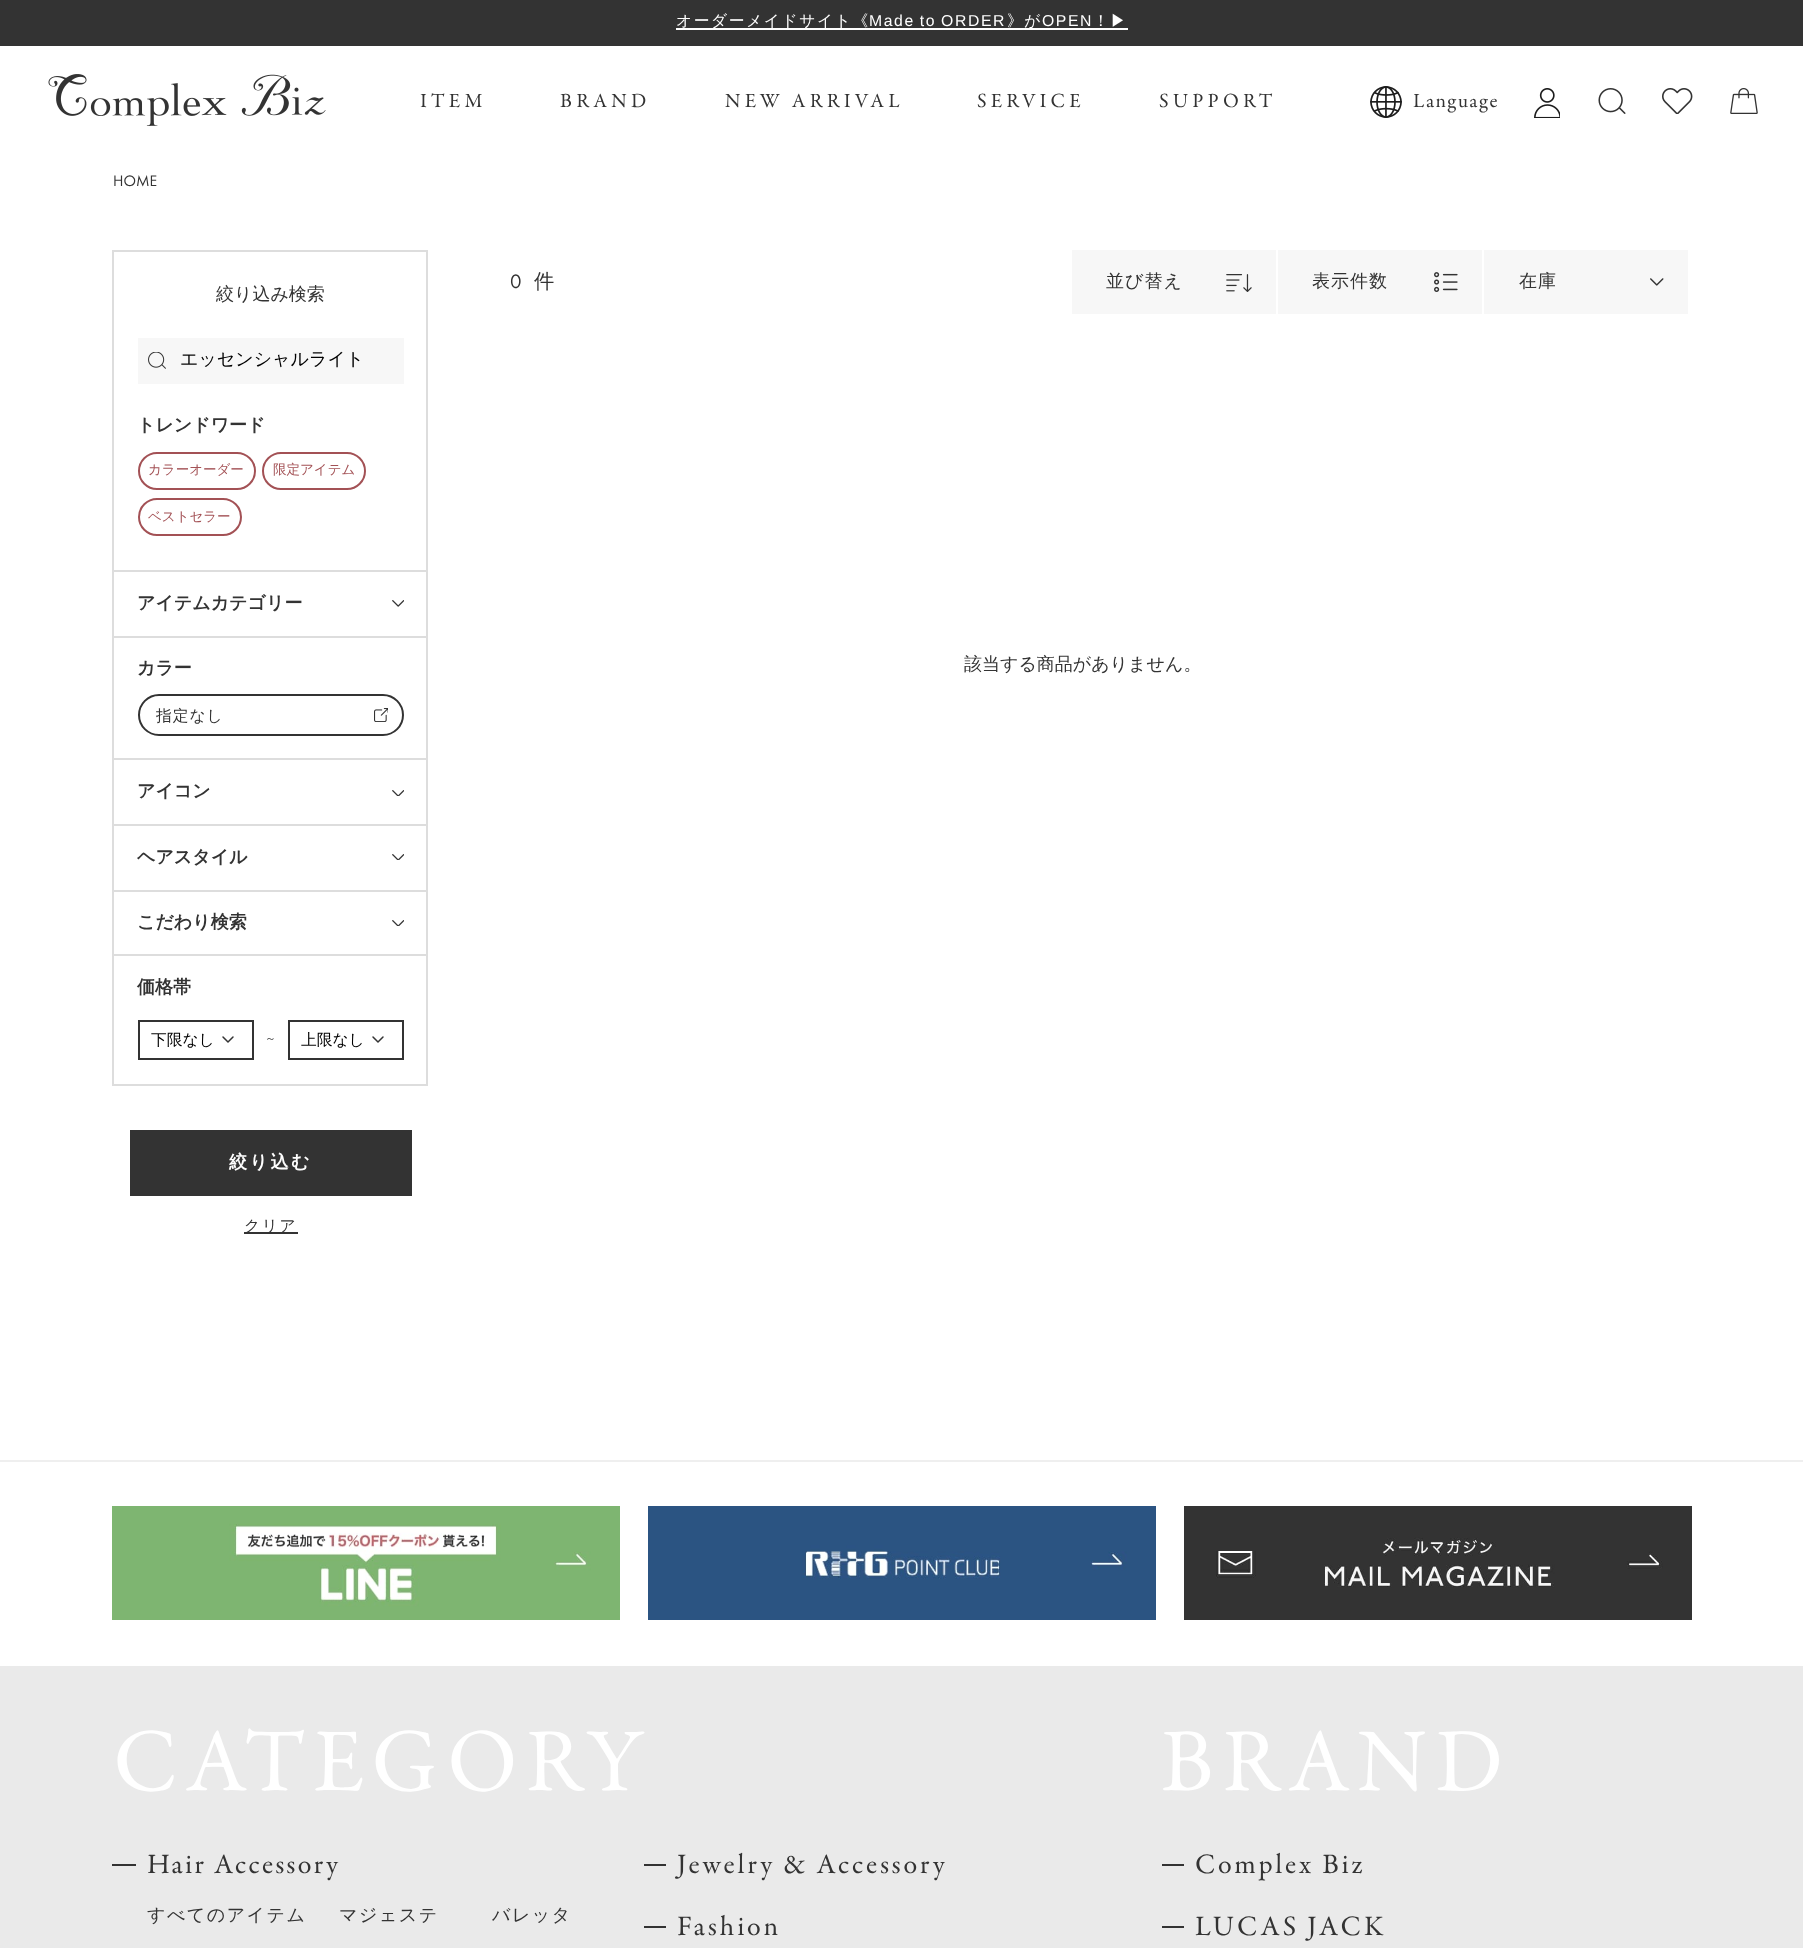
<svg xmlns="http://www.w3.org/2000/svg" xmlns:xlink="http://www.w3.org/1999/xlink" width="1803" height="1948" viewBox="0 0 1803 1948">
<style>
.cls-1{font:500 15.75px WenQuanYi Zen Hei;letter-spacing:1.6px;fill:#ffffff}
.cls-2{font:15.75px Liberation Sans;letter-spacing:1.6px;fill:#ffffff}
.cls-3{font:20.25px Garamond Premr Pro;letter-spacing:4px;fill:#333333}
.cls-4{font:20.25px Garamond Premr Pro;letter-spacing:1.5px;fill:#333333}
.cls-5{font:15.75px Futura PT;fill:#333333}
.cls-6{font:500 18px WenQuanYi Zen Hei;fill:#333333}
.cls-7{font:500 18px WenQuanYi Zen Hei;fill:#000000}
.cls-8{font:bold 18px WenQuanYi Zen Hei;fill:#333333}
.cls-9{font:500 13.5px WenQuanYi Zen Hei;fill:#a35155}
.cls-10{font:500 15.75px WenQuanYi Zen Hei;letter-spacing:1px;fill:#333333}
.cls-11{font:500 15.75px WenQuanYi Zen Hei;fill:#000000}
.cls-12{font:500 11px WenQuanYi Zen Hei;fill:#333333}
.cls-13{font:bold 18px WenQuanYi Zen Hei;letter-spacing:2.5px;fill:#ffffff}
.cls-14{font:500 15.75px WenQuanYi Zen Hei;letter-spacing:1.6px;fill:#333333}
.cls-15{font:20.25px Futura PT;letter-spacing:1.5px;fill:#333333}
.cls-16{font:500 20.25px WenQuanYi Zen Hei;letter-spacing:1.5px;fill:#333333}
.cls-17{font:500 18px WenQuanYi Zen Hei;letter-spacing:1px;fill:#333333}
.cls-18{font:90.25px Garamond Premr Pro;letter-spacing:7.25px;fill:#ffffff}
.cls-19{font:28.25px Garamond Premr Pro;letter-spacing:2.25px;fill:#333333}
.cls-20{font:500 18px WenQuanYi Zen Hei;letter-spacing:1.5px;fill:#333333}
.cls-21{font:28.25px Garamond Premr Pro;letter-spacing:2.8px;fill:#333333}
</style>
<rect width="100%" height="100%" fill="#ffffff"/>
<rect fill="#333333" x="0" y="0" width="1803" height="46"/>
<rect fill="#ffffff" x="676" y="28" width="452" height="2"/>
<image xlink:href="image0.png" x="48" y="74" width="278" height="52"/>
<image xlink:href="image1.png" x="1370" y="86" width="32" height="32"/>
<image xlink:href="image2.png" x="1534" y="88" width="26" height="30"/>
<image xlink:href="image3.png" x="1598" y="88" width="28" height="26"/>
<image xlink:href="image4.png" x="1662" y="88" width="31" height="26"/>
<image xlink:href="image5.png" x="1730" y="88" width="28" height="26"/>
<rect fill="none" stroke="#dddddd" stroke-width="2" x="113" y="251" width="314" height="834"/>
<rect fill="#dddddd" x="114" y="570" width="312" height="2"/>
<rect fill="#f7f7f7" x="138" y="338" width="266" height="46"/>
<image xlink:href="image6.png" x="148" y="352" width="18" height="17"/>
<rect fill="none" stroke="#a35155" stroke-width="2" x="139" y="453" width="116" height="36" rx="18"/>
<rect fill="none" stroke="#a35155" stroke-width="2" x="263" y="453" width="102" height="36" rx="18"/>
<rect fill="none" stroke="#a35155" stroke-width="2" x="139" y="499" width="102" height="36" rx="18"/>
<rect fill="#dddddd" x="114" y="636" width="312" height="2"/>
<image xlink:href="image7.png" x="392" y="600" width="12" height="7"/>
<rect fill="#dddddd" x="114" y="758" width="312" height="2"/>
<rect fill="none" stroke="#333333" stroke-width="2" x="139" y="695" width="264" height="40" rx="20"/>
<image xlink:href="image8.png" x="374" y="708" width="14" height="14"/>
<rect fill="#dddddd" x="114" y="824" width="312" height="2"/>
<image xlink:href="image9.png" x="392" y="790" width="12" height="6"/>
<rect fill="#dddddd" x="114" y="890" width="312" height="2"/>
<image xlink:href="image9.png" x="392" y="854" width="12" height="6"/>
<rect fill="#dddddd" x="114" y="954" width="312" height="2"/>
<image xlink:href="image9.png" x="392" y="920" width="12" height="6"/>
<path fill="none" stroke="#333333" stroke-width="1.5" stroke-linecap="round" stroke-linejoin="round" d="M233 1037L228 1042L223 1037"/>
<rect fill="none" stroke="#333333" stroke-width="2" x="139" y="1021" width="114" height="38"/>
<path fill="none" stroke="#333333" stroke-width="1.5" stroke-linecap="round" stroke-linejoin="round" d="M383 1037L378 1042L373 1037"/>
<rect fill="none" stroke="#333333" stroke-width="2" x="289" y="1021" width="114" height="38"/>
<rect fill="#333333" x="130" y="1130" width="282" height="66"/>
<rect fill="#333333" x="244" y="1232" width="54" height="2"/>
<rect fill="#f7f7f7" x="1072" y="250" width="204" height="64"/>
<image xlink:href="image10.png" x="1226" y="274" width="26" height="18"/>
<rect fill="#f7f7f7" x="1278" y="250" width="204" height="64"/>
<image xlink:href="image11.png" x="1434" y="272" width="24" height="20"/>
<rect fill="#f7f7f7" x="1484" y="250" width="204" height="64"/>
<image xlink:href="image12.png" x="1650" y="278" width="14" height="8"/>
<rect fill="#efefef" x="0" y="1460" width="1803" height="2"/>
<image xlink:href="image13.png" x="112" y="1506" width="508" height="114"/>
<image xlink:href="image14.png" x="648" y="1506" width="508" height="114"/>
<image xlink:href="image15.png" x="1184" y="1506" width="508" height="114"/>
<rect fill="#eaeaea" x="0" y="1666" width="1803" height="282"/>
<rect fill="#333333" x="112" y="1864" width="24" height="2"/>
<rect fill="#333333" x="644" y="1864" width="22" height="2"/>
<rect fill="#333333" x="644" y="1926" width="22" height="2"/>
<rect fill="#333333" x="1162" y="1864" width="22" height="2"/>
<rect fill="#333333" x="1162" y="1926" width="22" height="2"/>
<text class="cls-1" x="676" y="26">オーダーメイドサイト《</text>
<text class="cls-2" x="869" y="26" word-spacing="-1">Made to ORDER</text>
<text class="cls-1" x="1007" y="26">》が</text>
<text class="cls-2" x="1042" y="26">OPEN</text>
<text class="cls-1" x="1093" y="26">！▶︎︎</text>
<text class="cls-3" x="420" y="107">ITEM</text>
<text class="cls-3" x="560" y="107">BRAND</text>
<text class="cls-3" x="725" y="107">NEW ARRIVAL</text>
<text class="cls-3" x="977" y="107">SERVICE</text>
<text class="cls-3" x="1159" y="107">SUPPORT</text>
<text class="cls-4" x="1413" y="107">Language</text>
<text class="cls-5" x="113" y="186">HOME</text>
<text class="cls-6" x="216" y="300">絞り込み検索</text>
<text class="cls-7" x="180" y="365">エッセンシャルライト</text>
<text class="cls-8" x="137" y="431">トレンドワード</text>
<text class="cls-9" x="148" y="474">カラーオーダー</text>
<text class="cls-9" x="273" y="474">限定アイテム</text>
<text class="cls-9" x="148" y="521">ベストセラー</text>
<text class="cls-8" x="137" y="609">アイテムカテゴリー</text>
<text class="cls-8" x="137" y="674">カラー</text>
<text class="cls-10" x="156" y="721">指定なし</text>
<text class="cls-8" x="137" y="797">アイコン</text>
<text class="cls-8" x="137" y="863">ヘアスタイル</text>
<text class="cls-8" x="137" y="928">こだわり検索</text>
<text class="cls-8" x="137" y="993">価格帯</text>
<text class="cls-11" x="151" y="1045">下限なし</text>
<text class="cls-12" x="265" y="1042">～</text>
<text class="cls-11" x="301" y="1045">上限なし</text>
<text class="cls-13" x="229" y="1168">絞り込む</text>
<text class="cls-14" x="244" y="1231">クリア</text>
<text class="cls-15" x="510" y="288">0</text>
<text class="cls-16" x="534" y="288">件</text>
<text class="cls-17" x="1106" y="287">並び替え</text>
<text class="cls-17" x="1312" y="287">表示件数</text>
<text class="cls-17" x="1519" y="287">在庫</text>
<text class="cls-6" x="964" y="670">該当する商品がありません。</text>
<text class="cls-18" x="113" y="1790">CATEGORY</text>
<text class="cls-19" x="147" y="1873">Hair Accessory</text>
<text class="cls-20" x="147" y="1921">すべてのアイテム</text>
<text class="cls-20" x="339" y="1921">マジェステ</text>
<text class="cls-20" x="492" y="1921">バレッタ</text>
<text class="cls-21" x="677" y="1873">Jewelry &amp; Accessory</text>
<text class="cls-21" x="677" y="1935">Fashion</text>
<text class="cls-18" x="1161" y="1790">BRAND</text>
<text class="cls-21" x="1195" y="1873">Complex Biz</text>
<text class="cls-21" x="1195" y="1935">LUCAS JACK</text>
</svg>
